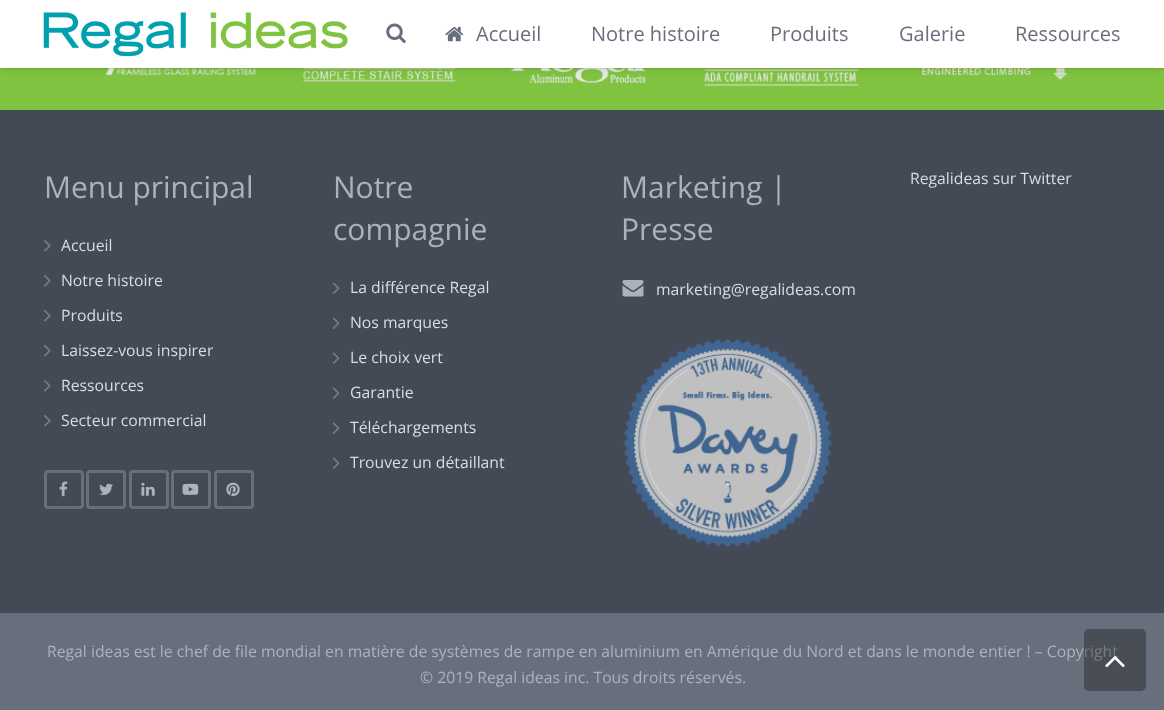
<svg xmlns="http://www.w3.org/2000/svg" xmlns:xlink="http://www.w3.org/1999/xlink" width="1164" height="710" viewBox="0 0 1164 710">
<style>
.cls-1{font:20px Open Sans;fill:#676f7c}
.cls-2{font:30px Open Sans;fill:#aab2bd}
.cls-3{font:15.75px Open Sans;fill:#d7dde0}
.cls-4{font:15.75px Open Sans;fill:#aab2bd}
</style>
<rect width="100%" height="100%" fill="#80c341"/>
<image xlink:href="image3.png" x="106" y="68" width="150" height="8"/>
<image xlink:href="image4.png" x="303" y="68" width="153" height="14"/>
<image xlink:href="image5.png" x="510" y="68" width="136" height="15"/>
<image xlink:href="image6.png" x="704" y="69" width="155" height="17"/>
<image xlink:href="image7.png" x="922" y="68" width="146" height="12"/>
<rect fill="#000000" fill-opacity="0.05" filter="blur(0.5px)" x="1" y="4" width="1163" height="65"/>
<rect fill="#000000" fill-opacity="0.1" filter="blur(3px)" x="1" y="5" width="1163" height="65"/>
<rect fill="#ffffff" x="0" y="0" width="1164" height="68"/>
<image xlink:href="image0.png" x="43" y="12" width="305" height="45"/>
<image xlink:href="image1.png" x="386" y="23" width="20" height="20"/>
<image xlink:href="image2.png" x="445" y="26" width="19" height="16"/>
<rect fill="#434955" x="0" y="110" width="1164" height="503"/>
<image xlink:href="image8.png" x="44" y="240" width="7" height="12"/>
<image xlink:href="image8.png" x="44" y="275" width="7" height="12"/>
<image xlink:href="image8.png" x="44" y="310" width="7" height="12"/>
<image xlink:href="image8.png" x="44" y="345" width="7" height="12"/>
<image xlink:href="image8.png" x="44" y="380" width="7" height="12"/>
<image xlink:href="image8.png" x="44" y="415" width="7" height="12"/>
<rect fill="none" stroke="#676f7c" stroke-width="3" x="45.5" y="471.5" width="37" height="36" rx="2.5"/>
<image xlink:href="image9.png" x="59" y="481" width="9" height="16"/>
<rect fill="none" stroke="#676f7c" stroke-width="3" x="87.5" y="471.5" width="37" height="36" rx="2.5"/>
<image xlink:href="image10.png" x="99" y="483" width="14" height="12"/>
<rect fill="none" stroke="#676f7c" stroke-width="3" x="130.5" y="471.5" width="37" height="36" rx="2.5"/>
<image xlink:href="image11.png" x="141" y="482" width="14" height="14"/>
<rect fill="none" stroke="#676f7c" stroke-width="3" x="172.5" y="471.5" width="37" height="36" rx="2.5"/>
<image xlink:href="image12.png" x="182" y="483" width="17" height="12"/>
<rect fill="none" stroke="#676f7c" stroke-width="3" x="215.5" y="471.5" width="37" height="36" rx="2.5"/>
<image xlink:href="image13.png" x="226" y="482" width="14" height="15"/>
<image xlink:href="image14.png" x="332" y="282" width="8" height="12"/>
<image xlink:href="image14.png" x="332" y="317" width="8" height="12"/>
<image xlink:href="image14.png" x="332" y="352" width="8" height="12"/>
<image xlink:href="image14.png" x="332" y="387" width="8" height="12"/>
<image xlink:href="image14.png" x="332" y="422" width="8" height="12"/>
<image xlink:href="image14.png" x="332" y="457" width="8" height="12"/>
<image xlink:href="image15.png" x="622" y="280" width="22" height="17"/>
<image xlink:href="image16.png" x="623" y="339" width="209" height="209"/>
<rect fill="#676f7c" x="0" y="613" width="1164" height="97"/>
<text class="cls-1" x="476" y="41">Accueil</text>
<text class="cls-1" x="591" y="41">Notre histoire</text>
<text class="cls-1" x="770" y="41">Produits</text>
<text class="cls-1" x="899" y="41">Galerie</text>
<text class="cls-1" x="1015" y="41">Ressources</text>
<text class="cls-2" x="44" y="198">Menu principal</text>
<text class="cls-3" x="61" y="251">Accueil</text>
<text class="cls-3" x="61" y="286">Notre histoire</text>
<text class="cls-3" x="61" y="321">Produits</text>
<text class="cls-3" x="61" y="356">Laissez-vous inspirer</text>
<text class="cls-3" x="61" y="391">Ressources</text>
<text class="cls-3" x="61" y="426">Secteur commercial</text>
<text class="cls-2"><tspan x="333" y="198">Notre</tspan><tspan x="333" y="240">compagnie</tspan></text>
<text class="cls-3" x="350" y="293">La différence Regal</text>
<text class="cls-3" x="350" y="328">Nos marques</text>
<text class="cls-3" x="350" y="363">Le choix vert</text>
<text class="cls-3" x="350" y="398">Garantie</text>
<text class="cls-3" x="350" y="433">Téléchargements</text>
<text class="cls-3" x="350" y="468">Trouvez un détaillant</text>
<text class="cls-2"><tspan x="621" y="198">Marketing |</tspan><tspan x="621" y="240">Presse</tspan></text>
<text class="cls-3" x="656" y="295">marketing@regalideas.com</text>
<text class="cls-3" x="910" y="184">Regalideas sur Twitter</text>
<text class="cls-4" x="47" y="657">Regal ideas est le chef de file mondial en matière de systèmes de rampe en aluminium en Amérique du Nord et dans le monde entier ! – Copyright</text>
<text class="cls-4" x="420" y="683">© 2019 Regal ideas inc. Tous droits réservés.</text>
<rect fill="#000000" fill-opacity="0.3" x="1084" y="629" width="62" height="62" rx="5"/>
<image xlink:href="image17.png" x="1105" y="656" width="20" height="12"/>
</svg>
